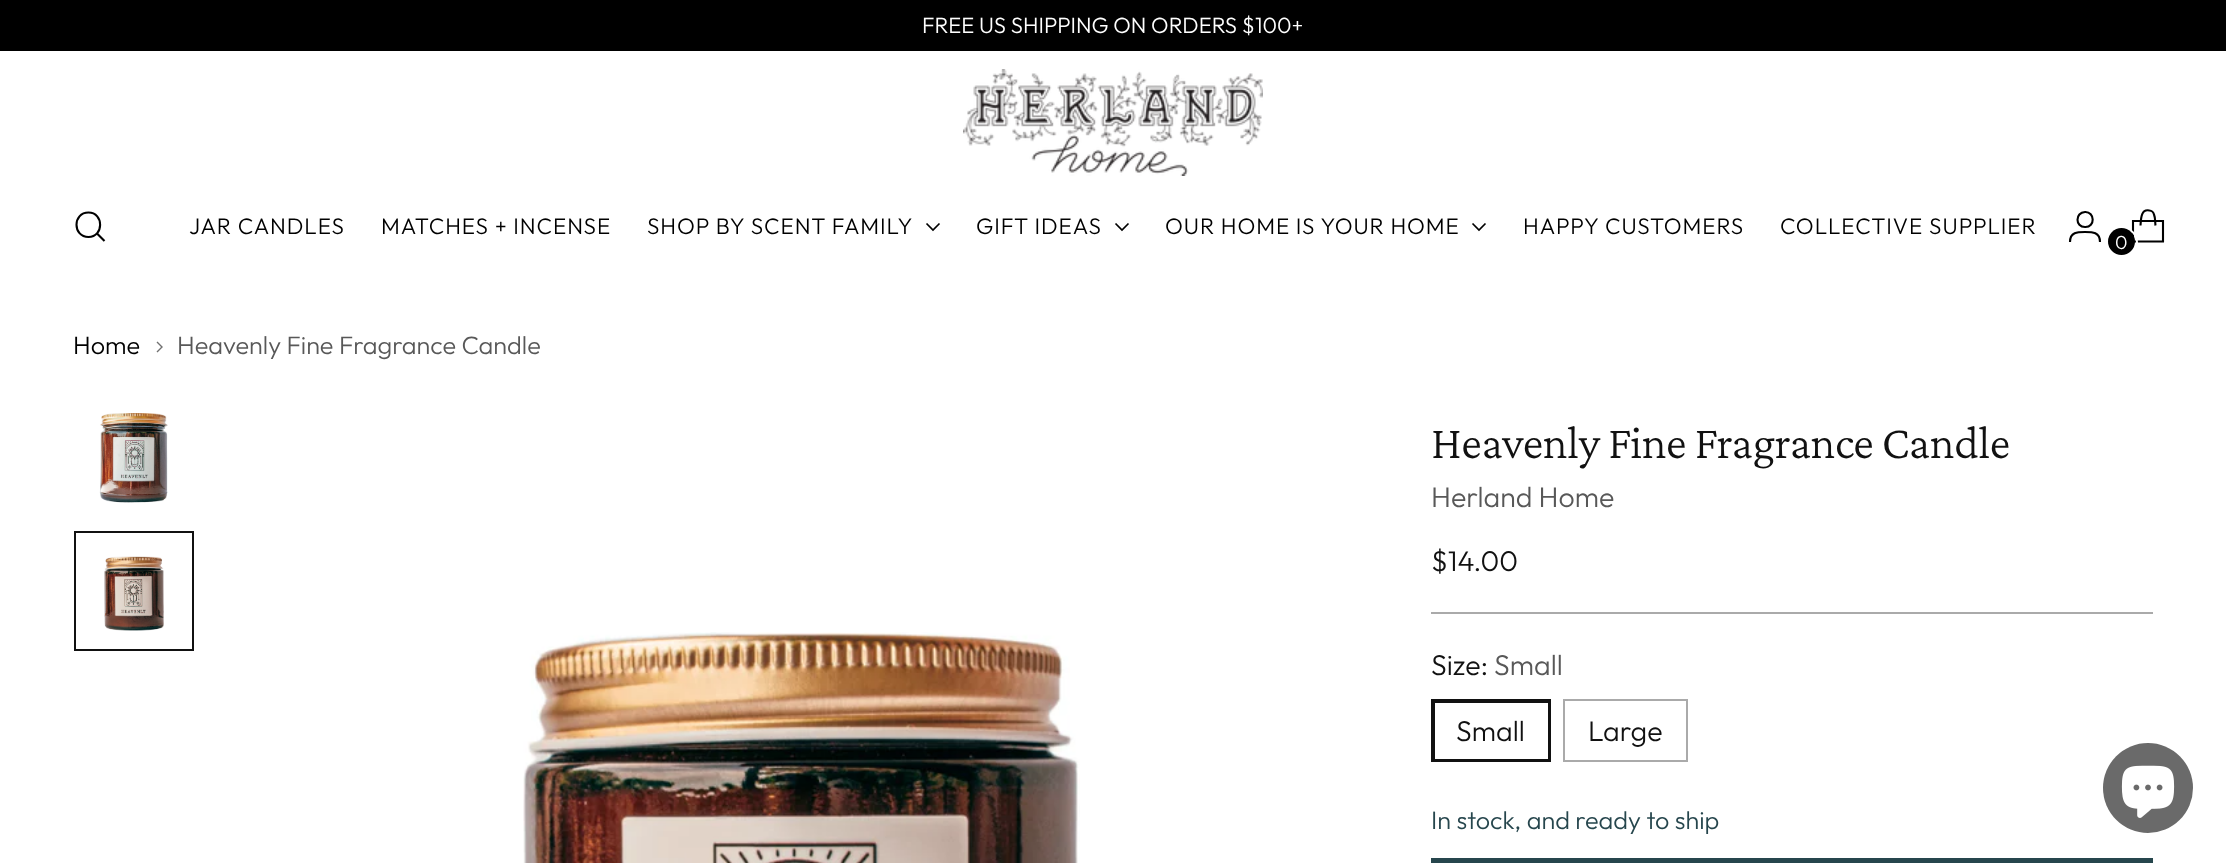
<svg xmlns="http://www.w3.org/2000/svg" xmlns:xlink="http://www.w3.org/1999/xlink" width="2226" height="863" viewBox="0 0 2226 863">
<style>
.cls-1{font:300 22.1px Outfit;fill:#ffffff}
.cls-2{font:300 22.5px Outfit;letter-spacing:0.9px;fill:#000000}
.cls-3{font:300 19px Outfit;fill:#ffffff}
.cls-4{font:300 25.25px Outfit;fill:#000000}
.cls-5{font:300 25.25px Outfit;fill:#585858}
.cls-6{font:300 47.25px Crimson Pro;letter-spacing:-0.5px;fill:#111111}
.cls-7{font:300 28.5px Outfit;fill:#585858}
.cls-8{font:300 28.5px Outfit;fill:#111111}
.cls-9{font:300 25.25px Outfit;fill:#26464d}
</style>
<rect width="100%" height="100%" fill="#ffffff"/>
<rect fill="#000000" x="0" y="0" width="2226" height="51"/>
<image xlink:href="image0.png" x="963" y="69" width="300" height="107"/>
<path fill="none" stroke="#000000" stroke-width="2.1" stroke-linecap="round" d="M88.5 237C104 237 104 212.5 88.5 212.5C72.5 212.5 72.5 237 88.5 237Z"/>
<path fill="none" stroke="#000000" stroke-width="2.1" d="M97 233.5L104.5 241"/>
<path fill="none" stroke="#000000" stroke-width="1.7" d="M926.5 223.5L933 230L939.5 223.5"/>
<path fill="none" stroke="#000000" stroke-width="1.7" d="M1115.5 223.5L1122 230L1128.5 223.5"/>
<path fill="none" stroke="#000000" stroke-width="1.7" d="M1472.5 223.5L1479 230L1485.5 223.5"/>
<path fill="none" stroke="#000000" stroke-width="2.1" d="M2085 227C2095.5 227.5 2095 211.5 2085 212C2075 212.5 2075 227 2085 227ZM2070 242C2070 232 2077.5 232 2085 232C2092.5 232 2100 232 2100 242"/>
<path fill="none" stroke="#000000" stroke-width="2.1" stroke-linejoin="bevel" d="M2155.5 225.5C2155 222 2155.5 218 2154 214.5C2153.5 212.5 2151.5 210.5 2149.5 210.5C2140.5 208.5 2141 220 2140.5 225.5"/>
<path fill="none" stroke="#000000" stroke-width="2.1" d="M2163 241.5V221H2133V241.5Z"/>
<rect fill="none" stroke="#ffffff" stroke-width="2" x="2107" y="228" width="30" height="29" rx="14.5"/>
<circle fill="#000000" cx="2121.5" cy="241.5" r="13.5"/>
<path fill="none" stroke="#707070" stroke-width="1.4" d="M157 352L162 347L157 342"/>
<image xlink:href="image1.png" x="99" y="413" width="69" height="90"/>
<image xlink:href="image2.png" x="104" y="556" width="60" height="75"/>
<rect fill="none" stroke="#111111" stroke-width="2" x="75" y="532" width="118" height="118"/>
<image xlink:href="image3.png" x="523" y="632" width="557" height="231"/>
<rect fill="#aaaaaa" x="1431" y="612" width="722" height="2"/>
<rect fill="none" stroke="#111111" stroke-width="2" x="1434" y="702" width="115" height="58"/>
<rect fill="none" stroke="#111111" stroke-width="2" x="1432" y="700" width="118" height="61"/>
<rect fill="none" stroke="#aaaaaa" stroke-width="2" x="1564" y="700" width="123" height="61"/>
<rect fill="#26464d" x="1431" y="858" width="722" height="5"/>
<circle fill="#6a6a6a" cx="2148" cy="788" r="45"/>
<image xlink:href="image4.png" x="2121" y="765" width="54" height="53"/>
<text class="cls-1" x="922" y="33">FREE US SHIPPING ON ORDERS $100+</text>
<text class="cls-2" x="189" y="234">JAR CANDLES</text>
<text class="cls-2" x="381" y="234">MATCHES + INCENSE</text>
<text class="cls-2" x="647" y="234">SHOP BY SCENT FAMILY</text>
<text class="cls-2" x="976" y="234">GIFT IDEAS</text>
<text class="cls-2" x="1165" y="234">OUR HOME IS YOUR HOME</text>
<text class="cls-2" x="1523" y="234">HAPPY CUSTOMERS</text>
<text class="cls-2" x="1780" y="234">COLLECTIVE SUPPLIER</text>
<text class="cls-3" x="2115" y="249">0</text>
<text class="cls-4" x="73" y="354">Home</text>
<text class="cls-5" x="177" y="354">Heavenly Fine Fragrance Candle</text>
<text class="cls-6" x="1431" y="458">Heavenly Fine Fragrance Candle</text>
<text class="cls-7" x="1431" y="507">Herland Home</text>
<text class="cls-8" x="1431" y="571">$14.00</text>
<text class="cls-8" x="1431" y="675">Size:</text>
<text class="cls-7" x="1494" y="675">Small</text>
<text class="cls-8" x="1456" y="741">Small</text>
<text class="cls-8" x="1588" y="741">Large</text>
<text class="cls-9" x="1431" y="829">In stock, and ready to ship</text>
</svg>
